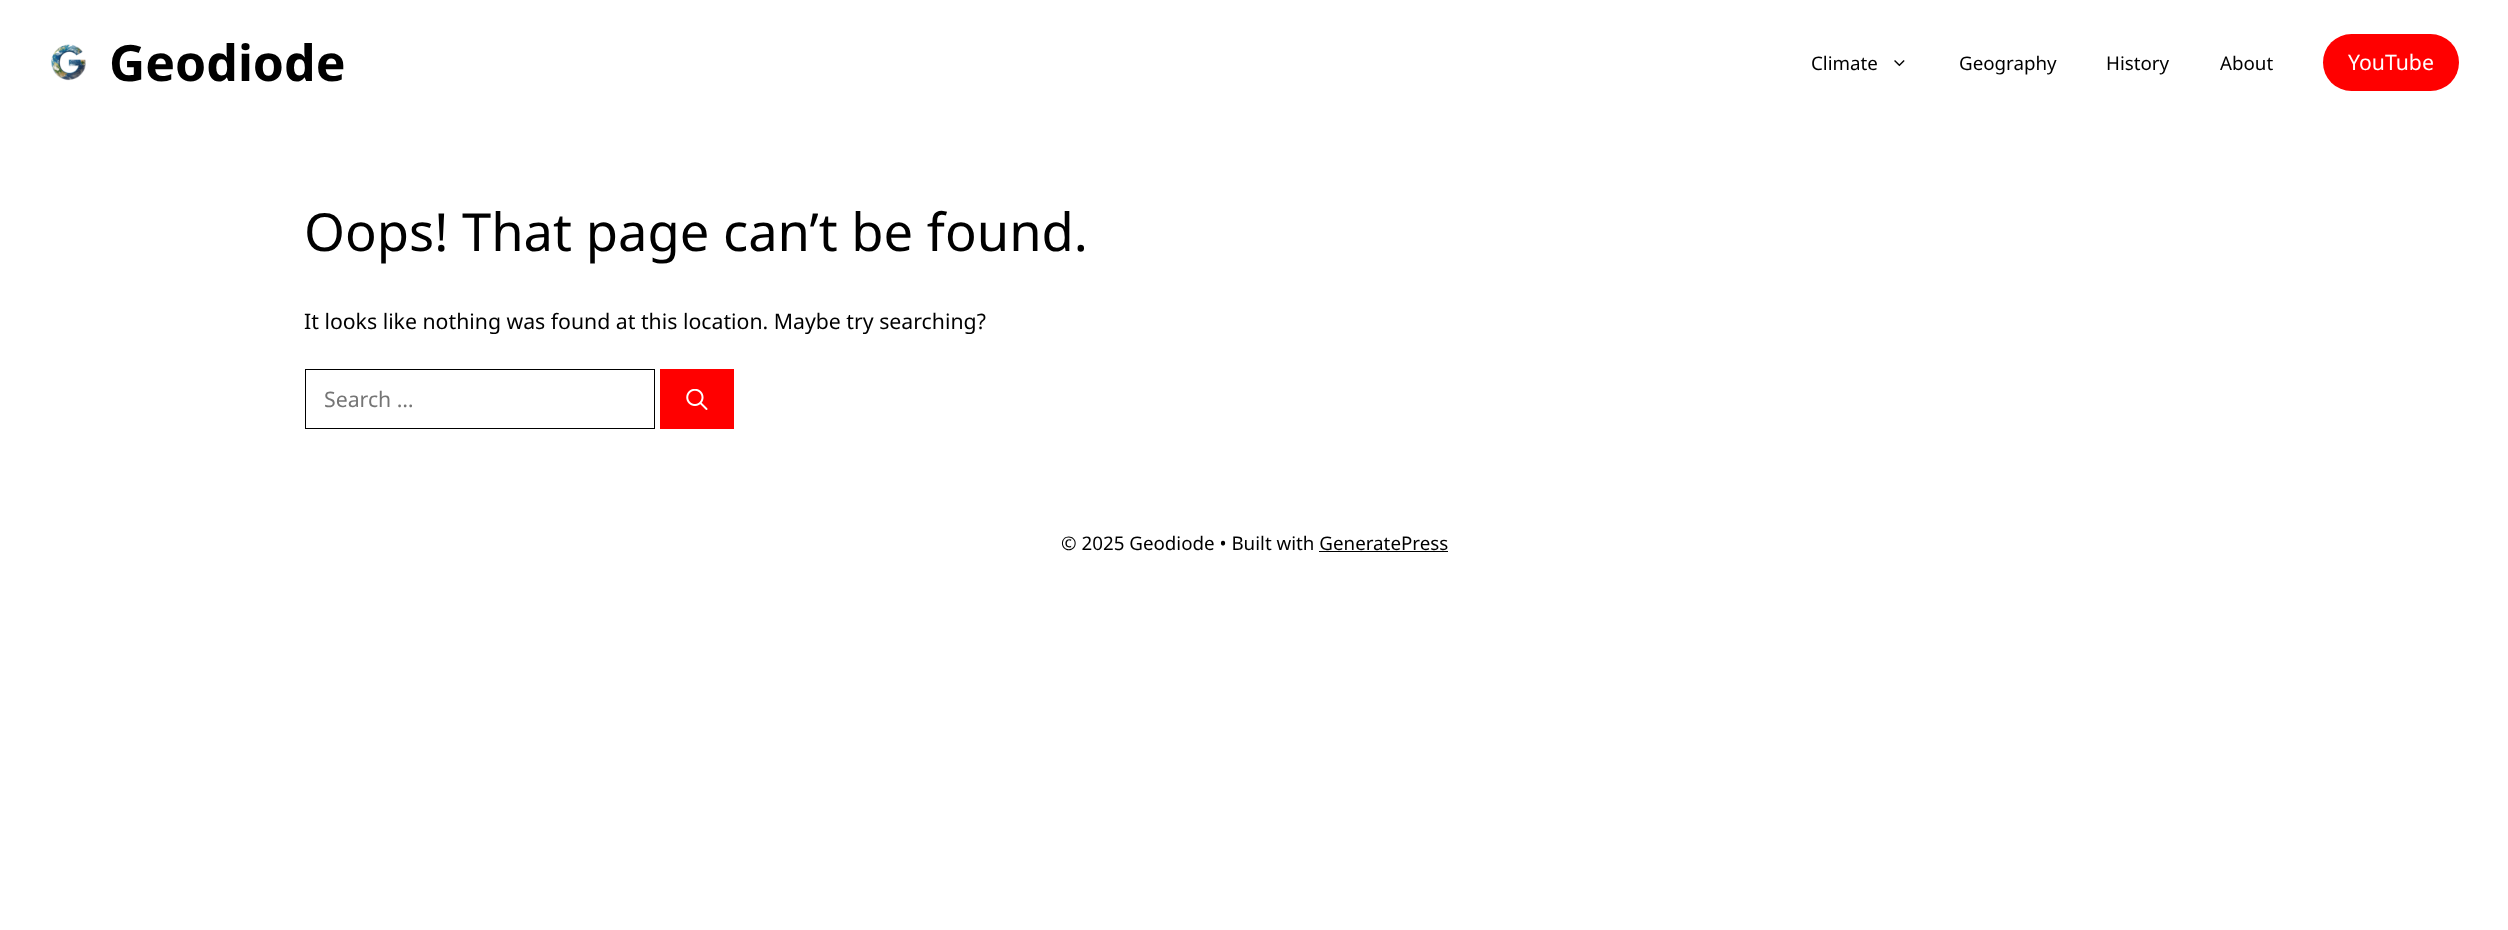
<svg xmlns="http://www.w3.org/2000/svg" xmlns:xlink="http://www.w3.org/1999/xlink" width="2508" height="930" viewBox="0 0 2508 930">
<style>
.cls-1{font:bold 50px Noto Sans;fill:#000000}
.cls-2{font:18.75px Noto Sans;fill:#000000}
.cls-3{font:21.25px Noto Sans;fill:#ffffff}
.cls-4{font:52.5px Noto Sans;fill:#000000}
.cls-5{font:21.25px Noto Sans;fill:#000000}
.cls-6{font:21.25px Noto Sans;fill:#757575}
</style>
<rect width="100%" height="100%" fill="#ffffff"/>
<image xlink:href="image0.png" x="51" y="44" width="35" height="37"/>
<image xlink:href="image1.png" x="1894" y="60" width="11" height="7"/>
<rect fill="#ff0000" x="2323" y="34" width="136" height="57" rx="28.5"/>
<rect fill="none" stroke="#000000" x="305.5" y="369.5" width="349" height="59"/>
<rect fill="#ff0000" x="660" y="369" width="74" height="60"/>
<image xlink:href="image2.png" x="686" y="389" width="22" height="21"/>
<rect fill="#000000" x="1319" y="551" width="129" height="1"/>
<text class="cls-1" x="109" y="81">Geodiode</text>
<text class="cls-2" x="1811" y="70">Climate</text>
<text class="cls-2" x="1959" y="70">Geography</text>
<text class="cls-2" x="2106" y="70">History</text>
<text class="cls-2" x="2220" y="70">About</text>
<text class="cls-3" x="2348" y="70">YouTube</text>
<text class="cls-4" x="304" y="251">Oops! That page can’t be found.</text>
<text class="cls-5" x="304" y="329">It looks like nothing was found at this location. Maybe try searching?</text>
<text class="cls-6" x="324" y="407">Search …</text>
<text class="cls-2" x="1061" y="550">© 2025 Geodiode • Built with GeneratePress</text>
</svg>
